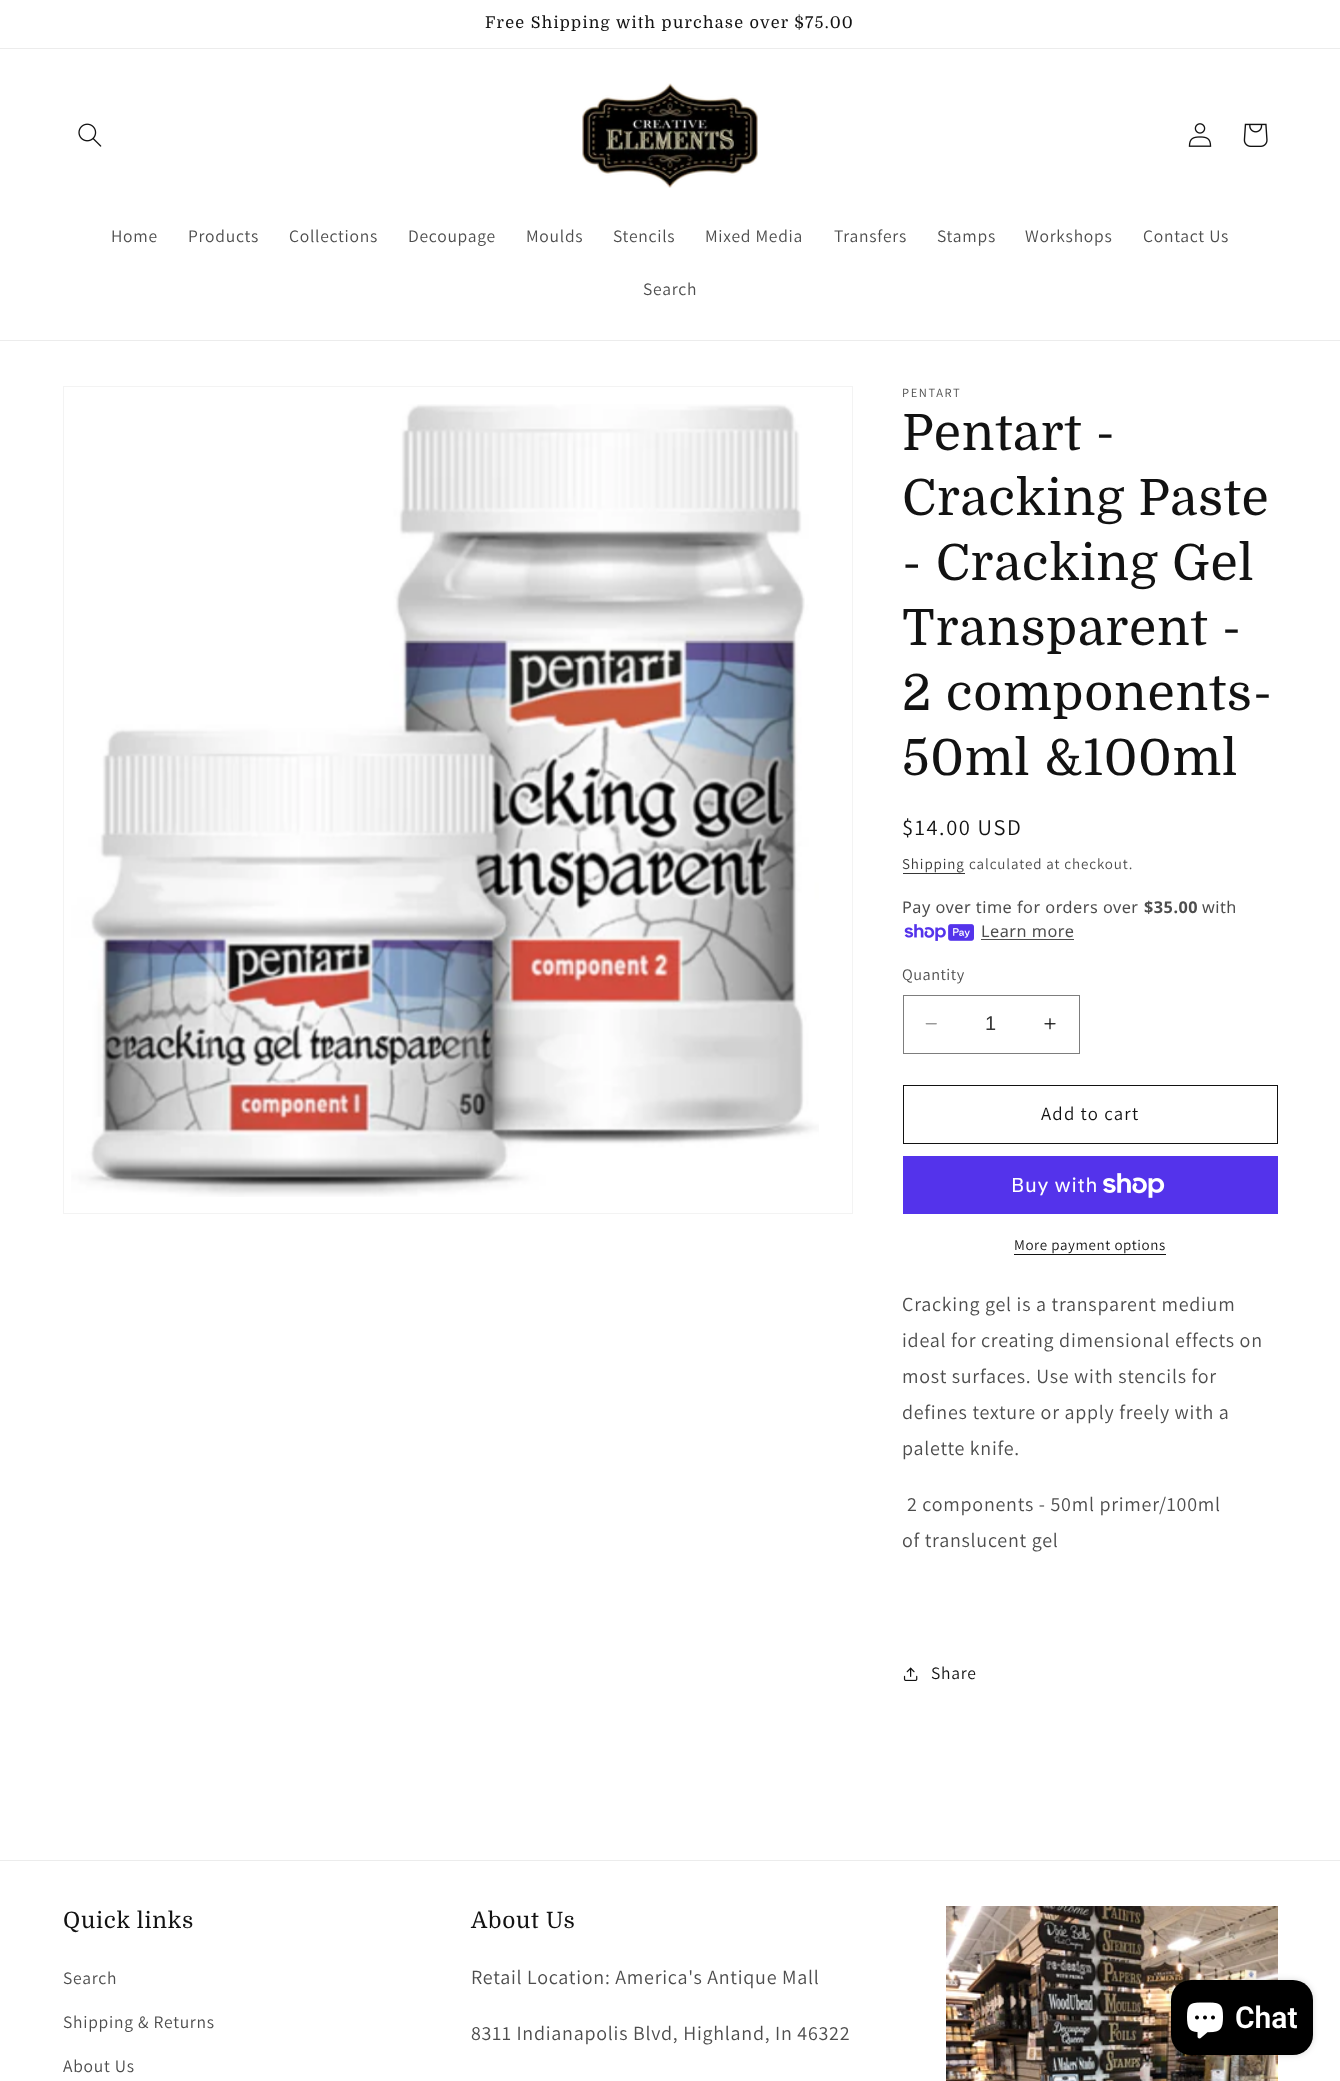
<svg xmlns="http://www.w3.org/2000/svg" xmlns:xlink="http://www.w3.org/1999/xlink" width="1340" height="2081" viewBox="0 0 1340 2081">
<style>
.cls-1{font:16.25px Domine;letter-spacing:1.25px;fill:#121212}
.cls-2{font:17.5px Assistant;letter-spacing:0.75px;fill:#4d4d4d}
.cls-3{font:12.5px Assistant;letter-spacing:1.6px;fill:#4d4d4d}
.cls-4{font:50px Domine;letter-spacing:0.75px;fill:#121212}
.cls-5{font:22.5px Assistant;letter-spacing:1.6px;fill:#121212}
.cls-6{font:15px Assistant;letter-spacing:0.9px;fill:#363636}
.cls-7{font:15px Assistant;letter-spacing:0.9px;fill:#4d4d4d}
.cls-8{font:16.25px Noto Sans;letter-spacing:0.5px;fill:#4d4d4d}
.cls-9{font:bold 16.25px Noto Sans;letter-spacing:0.5px;fill:#4d4d4d}
.cls-10{font:16.25px Assistant;letter-spacing:0.5px;fill:#4d4d4d}
.cls-11{font:20px Liberation Sans;fill:#363636}
.cls-12{font:18.75px Assistant;letter-spacing:1.25px;fill:#121212}
.cls-13{font:20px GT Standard;letter-spacing:0.75px;fill:#ffffff}
.cls-14{font:15px Assistant;letter-spacing:0.6px;fill:#121212}
.cls-15{font:20px Assistant;letter-spacing:0.75px;fill:#4d4d4d}
.cls-16{font:17.5px Assistant;letter-spacing:0.75px;fill:#121212}
.cls-17{font:22.5px Domine;letter-spacing:0.75px;fill:#121212}
.cls-18{font:600 30px Roboto;fill:#ffffff}
</style>
<rect width="100%" height="100%" fill="#ffffff"/>
<rect fill="#ececec" x="0" y="48" width="1340" height="1"/>
<rect fill="#ececec" x="0" y="340" width="1340" height="1"/>
<image xlink:href="image0.png" x="78" y="123" width="24" height="24"/>
<image xlink:href="image1.png" x="582" y="83" width="176" height="105"/>
<image xlink:href="image2.png" x="1188" y="123" width="24" height="24"/>
<image xlink:href="image3.png" x="1243" y="123" width="25" height="24"/>
<rect fill="none" stroke="#f3f3f3" x="63.5" y="386.5" width="789" height="827"/>
<image xlink:href="image4.png" x="71" y="404" width="748" height="793"/>
<rect fill="#363636" x="903" y="873" width="62" height="1"/>
<image xlink:href="image5.png" x="904" y="924" width="70" height="17"/>
<rect fill="#4d4d4d" x="981" y="939" width="93" height="1"/>
<image xlink:href="image6.png" x="925" y="1023" width="12" height="2"/>
<image xlink:href="image7.png" x="1044" y="1018" width="12" height="12"/>
<rect fill="none" stroke="#7d7d7d" x="903.5" y="995.5" width="176" height="58"/>
<rect fill="none" stroke="#121212" x="903.5" y="1085.5" width="374" height="58"/>
<rect fill="#5433eb" x="903" y="1156" width="375" height="58"/>
<image xlink:href="image8.png" x="1103" y="1173" width="62" height="25"/>
<rect fill="#121212" x="1014" y="1254" width="152" height="1"/>
<image xlink:href="image9.png" x="903" y="1667" width="15" height="14"/>
<rect fill="#ececec" x="0" y="1860" width="1340" height="1"/>
<image xlink:href="image10.png" x="946" y="1906" width="332" height="175"/>
<rect fill="#000000" fill-opacity="0.15" filter="blur(3px)" x="1171" y="1980" width="142" height="75" rx="20"/>
<rect fill="#000000" x="1171" y="1980" width="142" height="75" rx="20"/>
<image xlink:href="image11.png" x="1187" y="2002" width="36" height="37"/>
<text class="cls-1" x="485" y="28">Free Shipping with purchase over $75.00</text>
<text class="cls-2" x="111" y="242">Home</text>
<text class="cls-2" x="188" y="242">Products</text>
<text class="cls-2" x="289" y="242">Collections</text>
<text class="cls-2" x="408" y="242">Decoupage</text>
<text class="cls-2" x="526" y="242">Moulds</text>
<text class="cls-2" x="613" y="242">Stencils</text>
<text class="cls-2" x="705" y="242">Mixed Media</text>
<text class="cls-2" x="834" y="242">Transfers</text>
<text class="cls-2" x="937" y="242">Stamps</text>
<text class="cls-2" x="1025" y="242">Workshops</text>
<text class="cls-2" x="1143" y="242">Contact Us</text>
<text class="cls-2" x="643" y="295">Search</text>
<text class="cls-3" x="902" y="397">PENTART</text>
<text class="cls-4"><tspan x="902" y="450">Pentart -</tspan><tspan x="902" y="515">Cracking Paste</tspan><tspan x="902" y="580">- Cracking Gel</tspan><tspan x="902" y="645">Transparent -</tspan><tspan x="902" y="710">2 components-</tspan><tspan x="902" y="775">50ml &amp;100ml</tspan></text>
<text class="cls-5" x="902" y="835">$14.00 USD</text>
<text class="cls-6" x="902" y="869">Shipping</text>
<text class="cls-7" x="969" y="869">calculated at checkout.</text>
<text class="cls-8" x="902" y="913">Pay over time for orders over</text>
<text class="cls-9" x="1144" y="913">$35.00</text>
<text class="cls-8" x="1202" y="913">with</text>
<text class="cls-8" x="981" y="937">Learn more</text>
<text class="cls-10" x="902" y="980">Quantity</text>
<text class="cls-11" x="985" y="1030">1</text>
<text class="cls-12" x="1041" y="1120">Add to cart</text>
<text class="cls-13" x="1011" y="1192">Buy with</text>
<text class="cls-14" x="1014" y="1250">More payment options</text>
<text class="cls-15"><tspan x="902" y="1311">Cracking gel is a transparent medium</tspan><tspan x="902" y="1347">ideal for creating dimensional effects on</tspan><tspan x="902" y="1383">most surfaces. Use with stencils for</tspan><tspan x="902" y="1419">defines texture or apply freely with a</tspan><tspan x="902" y="1455">palette knife.</tspan></text>
<text class="cls-15" x="907" y="1511">2 components - 50ml primer/100ml</text>
<text class="cls-15" x="902" y="1547">of translucent gel</text>
<text class="cls-16" x="931" y="1679">Share</text>
<text class="cls-17" x="63" y="1928">Quick links</text>
<text class="cls-2" x="63" y="1984">Search</text>
<text class="cls-2" x="63" y="2028">Shipping &amp; Returns</text>
<text class="cls-2" x="63" y="2072">About Us</text>
<text class="cls-17" x="471" y="1928">About Us</text>
<text class="cls-15" x="471" y="1984">Retail Location: America's Antique Mall</text>
<text class="cls-15" x="471" y="2040">8311 Indianapolis Blvd, Highland, In 46322</text>
<text class="cls-18" x="1235" y="2028">Chat</text>
</svg>
